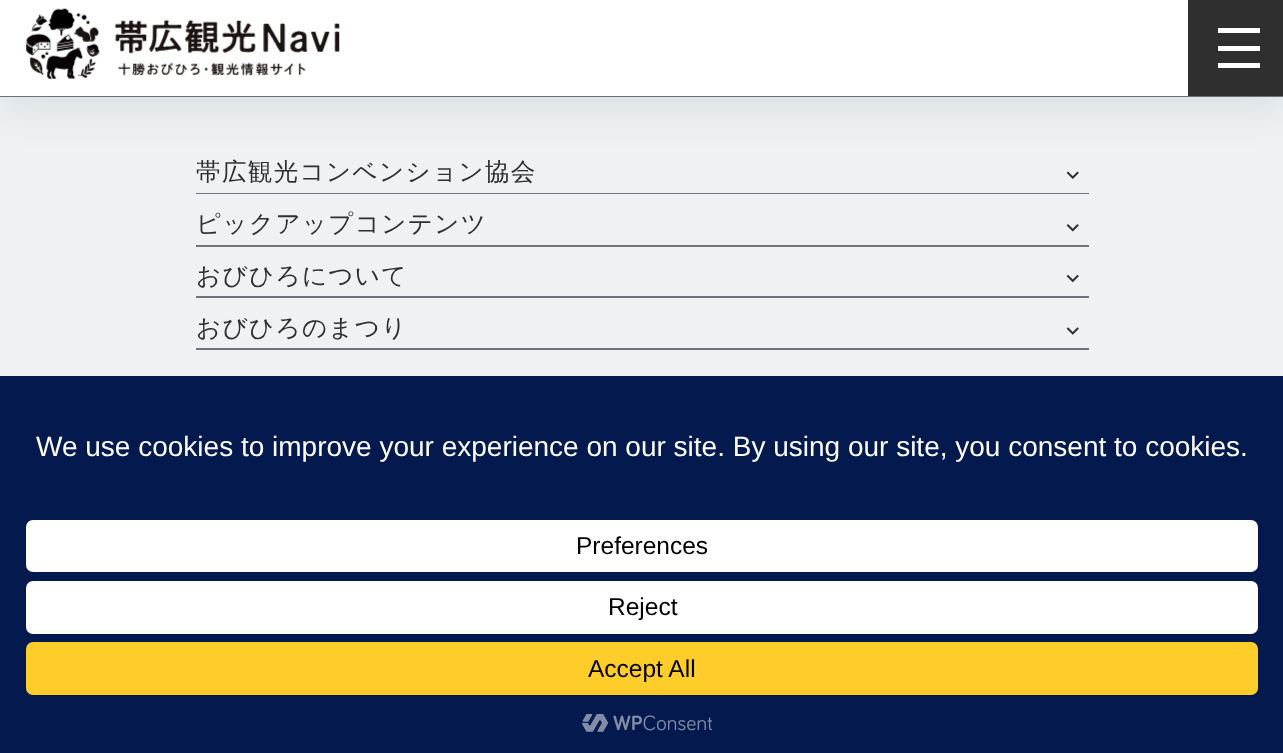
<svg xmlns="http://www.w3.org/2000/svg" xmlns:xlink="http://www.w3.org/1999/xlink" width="1283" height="753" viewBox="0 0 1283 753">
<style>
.cls-1{font:500 24.5px WenQuanYi Zen Hei;letter-spacing:1.4px;fill:#2f2f2f}
.cls-2{font:28px Liberation Sans;fill:#ffffff}
.cls-3{font:24.5px Liberation Sans;fill:#000000}
</style>
<rect width="100%" height="100%" fill="#eff1f2"/>
<rect fill="#6c757d" x="0" y="96" width="1283" height="1"/>
<rect fill="#36647e" fill-opacity="0.16" filter="blur(22px)" x="0" y="5" width="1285" height="97"/>
<rect fill="#ffffff" x="0" y="0" width="1188" height="96"/>
<image xlink:href="image0.png" x="26" y="8" width="314" height="71"/>
<rect fill="#2f2f2f" x="1188" y="0" width="95" height="96"/>
<rect fill="#ffffff" x="1218" y="28" width="42" height="5"/>
<rect fill="#ffffff" x="1218" y="46" width="42" height="5"/>
<rect fill="#ffffff" x="1218" y="63" width="42" height="5"/>
<rect fill="#6c757d" x="196" y="193" width="893" height="1"/>
<image xlink:href="image1.png" x="1066" y="171" width="13" height="8"/>
<rect fill="#6c757d" x="196" y="245" width="893" height="2"/>
<image xlink:href="image2.png" x="1066" y="224" width="13" height="8"/>
<rect fill="#6c757d" x="196" y="296" width="893" height="2"/>
<image xlink:href="image3.png" x="1066" y="274" width="13" height="9"/>
<rect fill="#6c757d" x="196" y="348" width="893" height="2"/>
<image xlink:href="image4.png" x="1066" y="327" width="13" height="8"/>
<rect fill="#04194e" x="0" y="376" width="1283" height="377"/>
<rect fill="#ffffff" x="26" y="520" width="1232" height="52" rx="7"/>
<rect fill="#ffffff" x="26" y="581" width="1232" height="53" rx="7"/>
<rect fill="#ffcd2a" x="26" y="642" width="1232" height="53" rx="7"/>
<image xlink:href="image5.png" x="582" y="714" width="130" height="18"/>
<text class="cls-1" x="196" y="180">帯広観光コンベンション協会</text>
<text class="cls-1" x="196" y="232">ピックアップコンテンツ</text>
<text class="cls-1" x="196" y="284">おびひろについて</text>
<text class="cls-1" x="196" y="336">おびひろのまつり</text>
<text class="cls-2" x="36" y="456">We use cookies to improve your experience on our site. By using our site, you consent to cookies.</text>
<text class="cls-3" x="576" y="554">Preferences</text>
<text class="cls-3" x="608" y="615">Reject</text>
<text class="cls-3" x="588" y="677">Accept All</text>
</svg>
